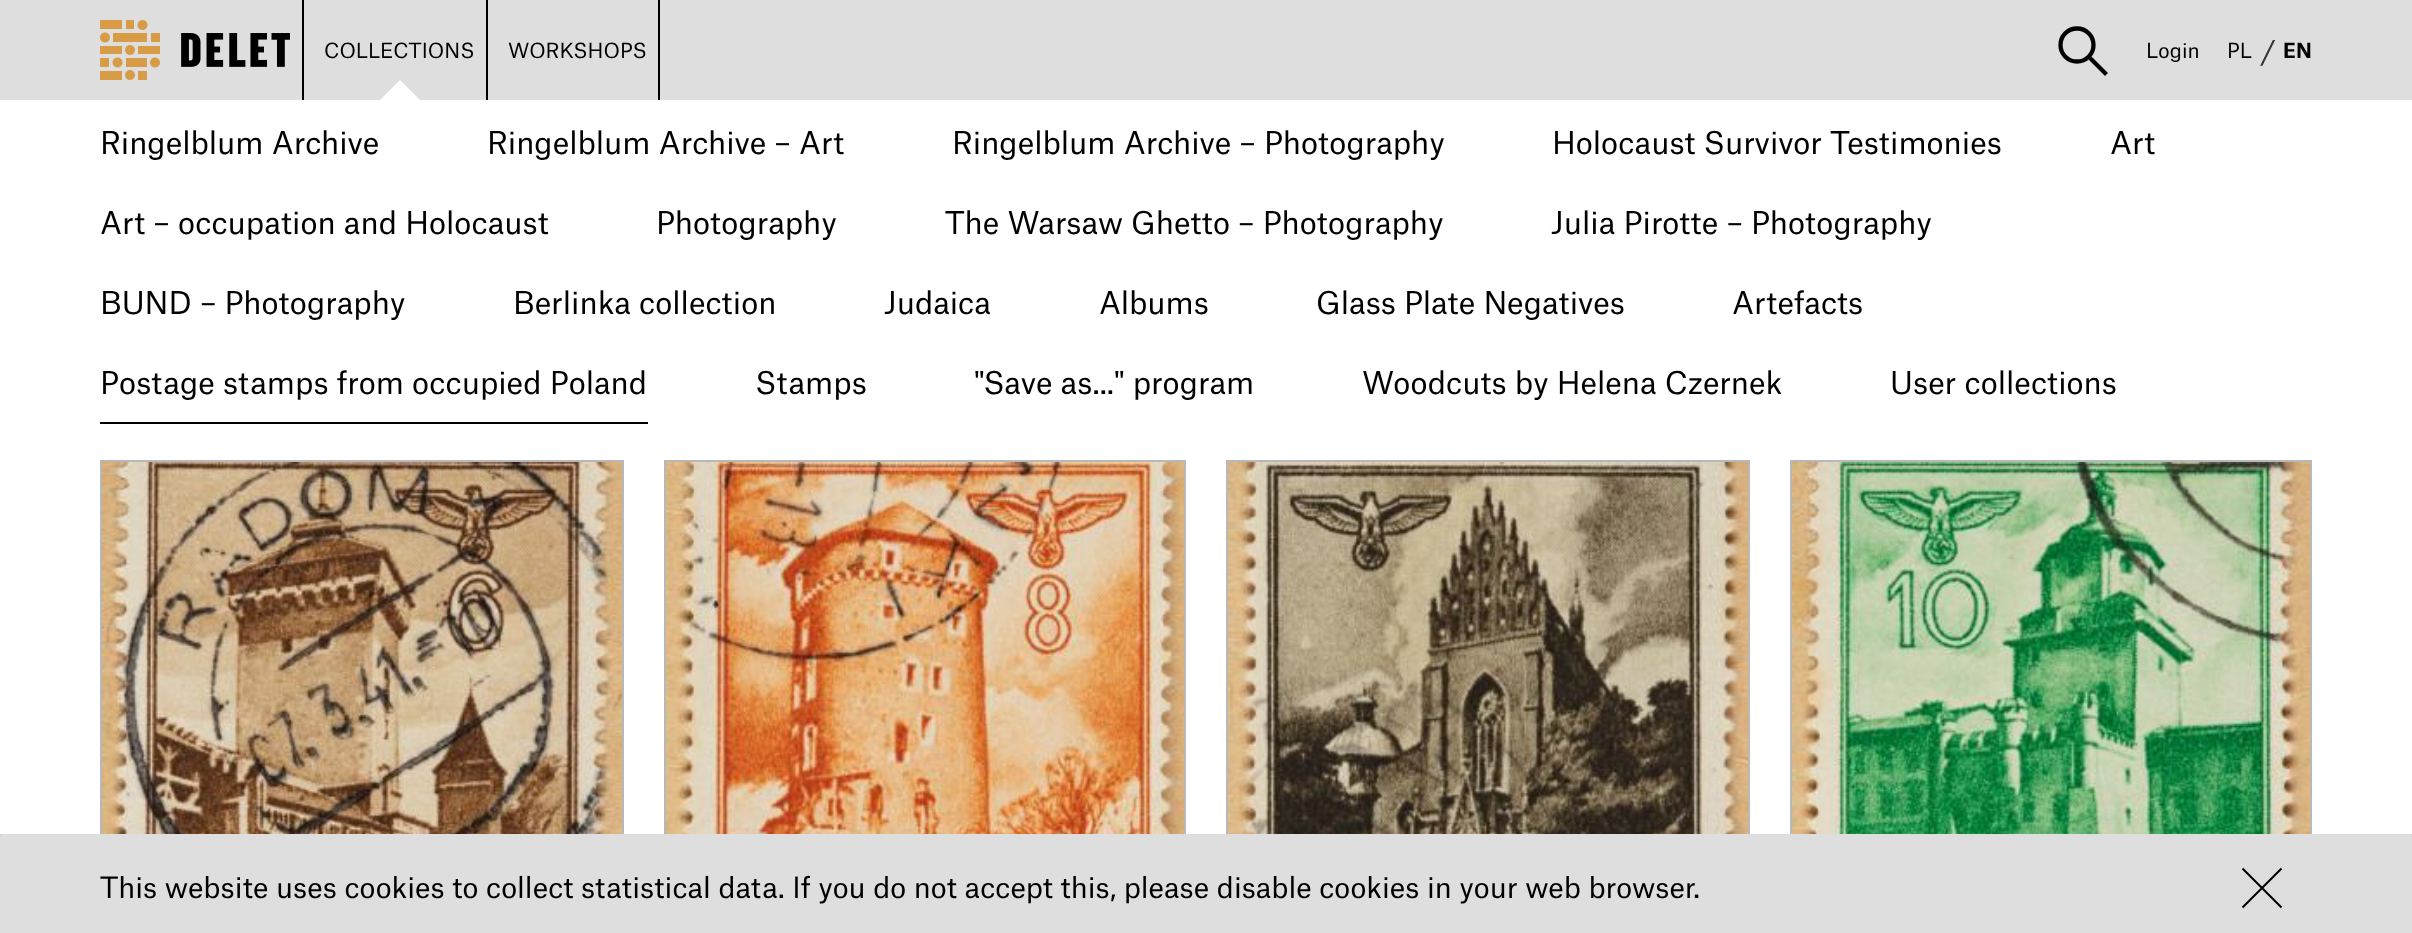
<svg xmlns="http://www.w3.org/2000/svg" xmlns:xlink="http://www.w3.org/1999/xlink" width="2412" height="933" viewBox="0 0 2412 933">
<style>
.cls-1{font:20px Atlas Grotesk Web;fill:#000000}
.cls-2{font:28px Atlas Grotesk Web;fill:#333333}
.cls-3{font:bold 20px Atlas Grotesk Web;fill:#000000}
.cls-4{font:30px Atlas Grotesk Web;fill:#000000}
.cls-5{font:28px Atlas Grotesk Web;fill:#000000}
</style>
<defs>
<clipPath id="clip1"><rect x="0" y="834" width="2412" height="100"/></clipPath>
</defs>
<rect width="100%" height="100%" fill="#ffffff"/>
<rect fill="#dedede" x="0" y="0" width="2412" height="100"/>
<rect fill="#000000" x="302" y="0" width="2" height="100"/>
<image xlink:href="image0.png" x="100" y="20" width="190" height="60"/>
<rect fill="#000000" x="486" y="0" width="2" height="100"/>
<path fill="#ffffff" d="M420 100H380L400 80Z"/>
<rect fill="#000000" x="658" y="0" width="2" height="100"/>
<circle fill="none" stroke="#000000" stroke-width="4.3" cx="2077" cy="45" r="16.5"/>
<path fill="none" stroke="#000000" stroke-width="4.3" d="M2090 58L2106.5 74.5"/>
<rect fill="#000000" x="100" y="422" width="548" height="2"/>
<rect fill="none" stroke="#b8b8b8" stroke-width="2" x="101" y="461" width="522" height="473"/>
<image xlink:href="image1.png" x="102" y="462" width="520" height="372"/>
<rect fill="none" stroke="#b8b8b8" stroke-width="2" x="665" y="461" width="520" height="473"/>
<image xlink:href="image2.png" x="666" y="462" width="518" height="372"/>
<rect fill="none" stroke="#b8b8b8" stroke-width="2" x="1227" y="461" width="522" height="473"/>
<image xlink:href="image3.png" x="1228" y="462" width="520" height="372"/>
<rect fill="none" stroke="#b8b8b8" stroke-width="2" x="1791" y="461" width="520" height="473"/>
<image xlink:href="image4.png" x="1792" y="462" width="518" height="372"/>
<rect fill="#dedede" x="0" y="834" width="2412" height="4"/>
<g clip-path="url(#clip1)">
<rect fill="#000000" fill-opacity="0.26" filter="blur(5px)" x="0" y="838" width="2412" height="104" rx="4"/>
</g>
<path fill="#dedede" d="M4 834H2408C2410 834 2412 836 2412 838V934H0V838C0 836 2 834 4 834Z"/>
<path fill="none" stroke="#000000" stroke-width="2" d="M2242.5 868.5L2281.5 907.5M2281.5 868.5L2242.5 907.5"/>
<text class="cls-1" x="324" y="58">COLLECTIONS</text>
<text class="cls-1" x="508" y="58">WORKSHOPS</text>
<text class="cls-1" x="2146" y="58">Login</text>
<text class="cls-1" x="2227" y="58">PL</text>
<text class="cls-2" x="2260" y="62">/</text>
<text class="cls-3" x="2283" y="58">EN</text>
<text class="cls-4" x="100" y="154">Ringelblum Archive</text>
<text class="cls-4" x="487" y="154">Ringelblum Archive – Art</text>
<text class="cls-4" x="952" y="154">Ringelblum Archive – Photography</text>
<text class="cls-4" x="1552" y="154">Holocaust Survivor Testimonies</text>
<text class="cls-4" x="2110" y="154">Art</text>
<text class="cls-4" x="100" y="234">Art – occupation and Holocaust</text>
<text class="cls-4" x="656" y="234">Photography</text>
<text class="cls-4" x="945" y="234">The Warsaw Ghetto – Photography</text>
<text class="cls-4" x="1551" y="234">Julia Pirotte – Photography</text>
<text class="cls-4" x="100" y="314">BUND – Photography</text>
<text class="cls-4" x="513" y="314">Berlinka collection</text>
<text class="cls-4" x="884" y="314">Judaica</text>
<text class="cls-4" x="1099" y="314">Albums</text>
<text class="cls-4" x="1316" y="314">Glass Plate Negatives</text>
<text class="cls-4" x="1732" y="314">Artefacts</text>
<text class="cls-4" x="100" y="394">Postage stamps from occupied Poland</text>
<text class="cls-4" x="755" y="394">Stamps</text>
<text class="cls-4" x="974" y="394">"Save as..." program</text>
<text class="cls-4" x="1362" y="394">Woodcuts by Helena Czernek</text>
<text class="cls-4" x="1890" y="394">User collections</text>
<text class="cls-5" x="100" y="898">This website uses cookies to collect statistical data. If you do not accept this, please disable cookies in your web browser.</text>
</svg>
